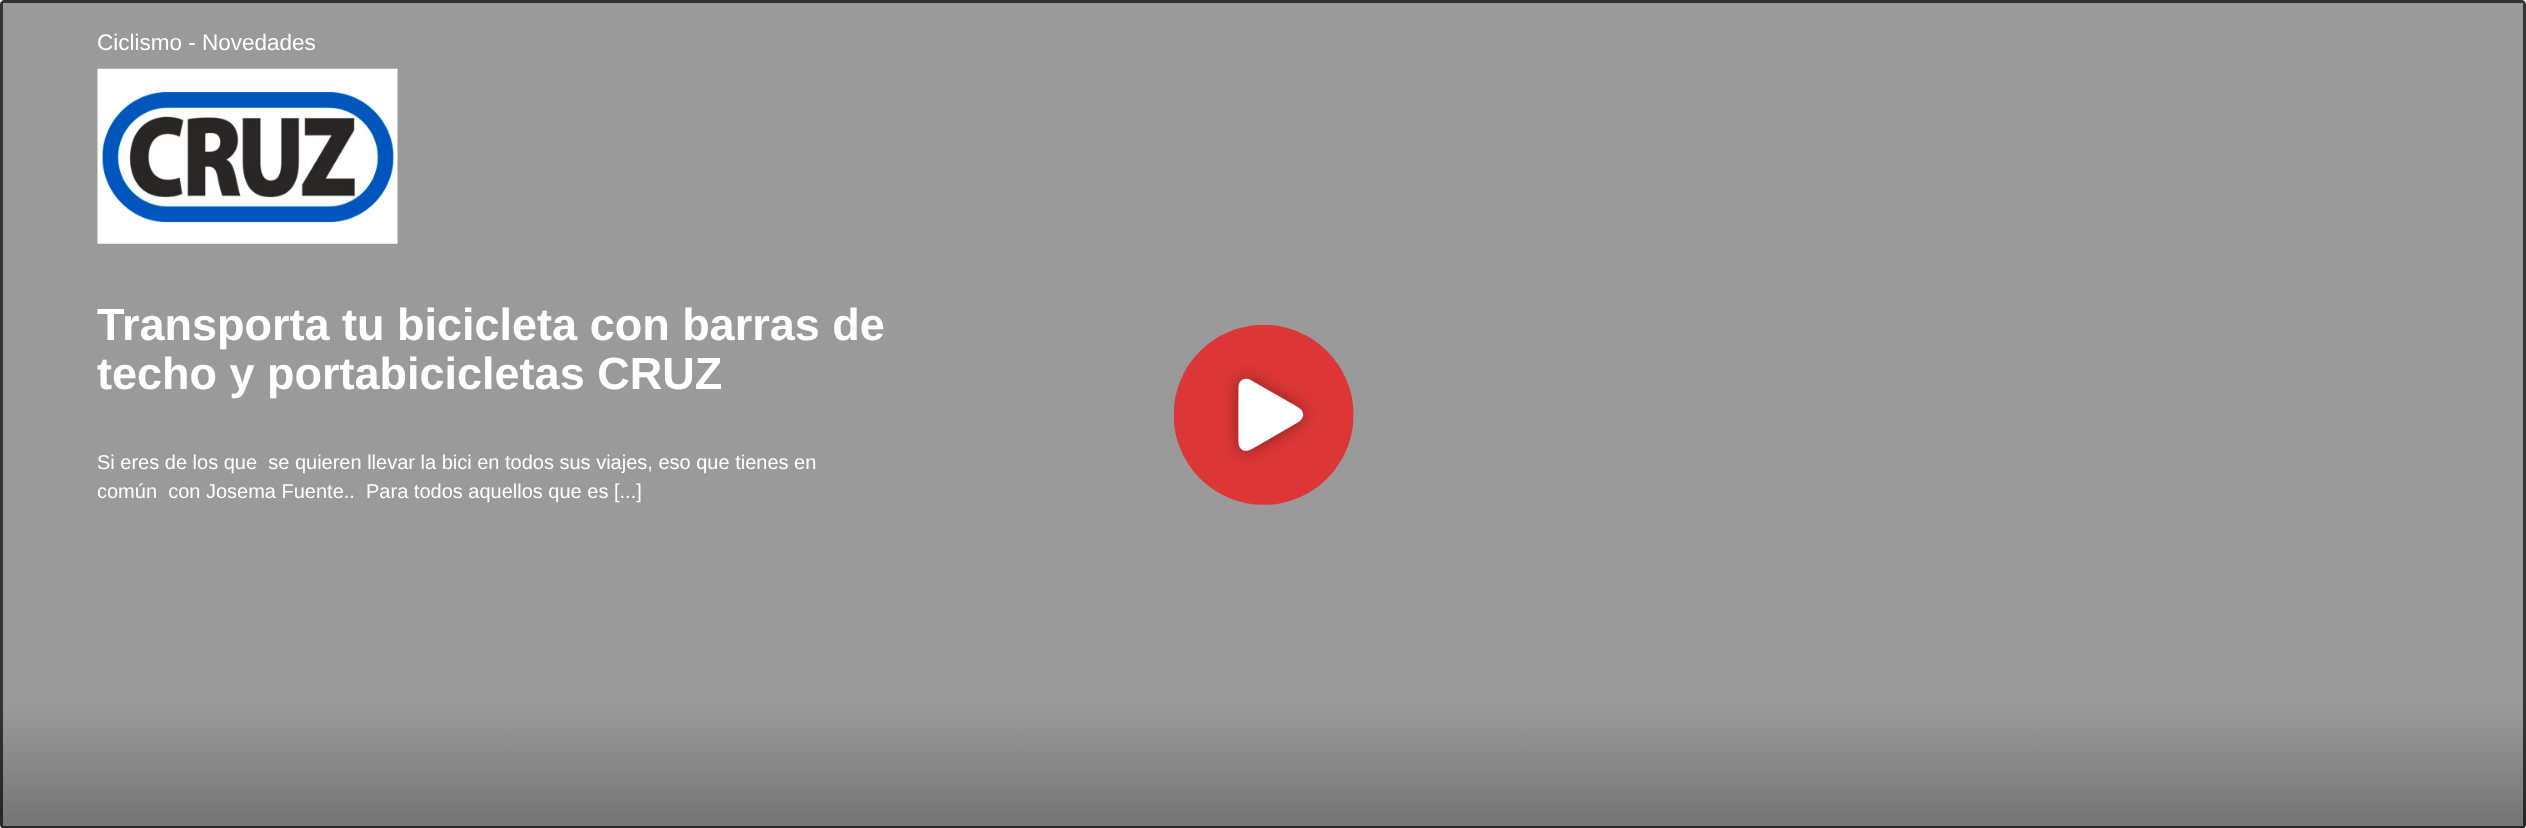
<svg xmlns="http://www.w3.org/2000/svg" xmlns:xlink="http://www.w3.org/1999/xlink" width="2526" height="828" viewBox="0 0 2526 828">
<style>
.cls-1{font:22.5px Liberation Sans;fill:#ffffff}
.cls-2{font:bold 45px Liberation Sans;fill:#ffffff}
.cls-3{font:20px Liberation Sans;fill:#ffffff}
</style>
<defs>
<linearGradient id="g1" gradientUnits="userSpaceOnUse" x1="1263" y1="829" x2="1263" y2="0"><stop offset="0" stop-color="#000000" stop-opacity="0.25"/><stop offset="0.15" stop-color="#000000" stop-opacity="0"/></linearGradient>
</defs>
<rect width="100%" height="100%" fill="#ffffff"/>
<rect fill="#9a9a9a" x="0" y="0" width="2526" height="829" rx="5"/>
<path fill="#333333" fill-rule="evenodd" d="M5 0C2 0 0 2 0 5V824C0 827 2 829 5 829H2521C2524 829 2526 827 2526 824V5C2526 2 2524 0 2521 0ZM3 3V826H2523V3Z"/>
<image xlink:href="image1.png" x="97" y="68" width="301" height="176"/>
<rect fill="url(#g1)" x="0" y="0" width="2526" height="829" rx="5"/>
<image xlink:href="image0.png" x="1173" y="325" width="181" height="180"/>
<text class="cls-1" x="97" y="50">Ciclismo - Novedades</text>
<text class="cls-2"><tspan x="97" y="340">Transporta tu bicicleta con barras de</tspan><tspan x="97" y="389">techo y portabicicletas CRUZ</tspan></text>
<text class="cls-3" xml:space="preserve"><tspan x="97" y="469">Si eres de los que  se quieren llevar la bici en todos sus viajes, eso que tienes en</tspan><tspan x="97" y="498">común  con Josema Fuente..  Para todos aquellos que es [...]</tspan></text>
</svg>
